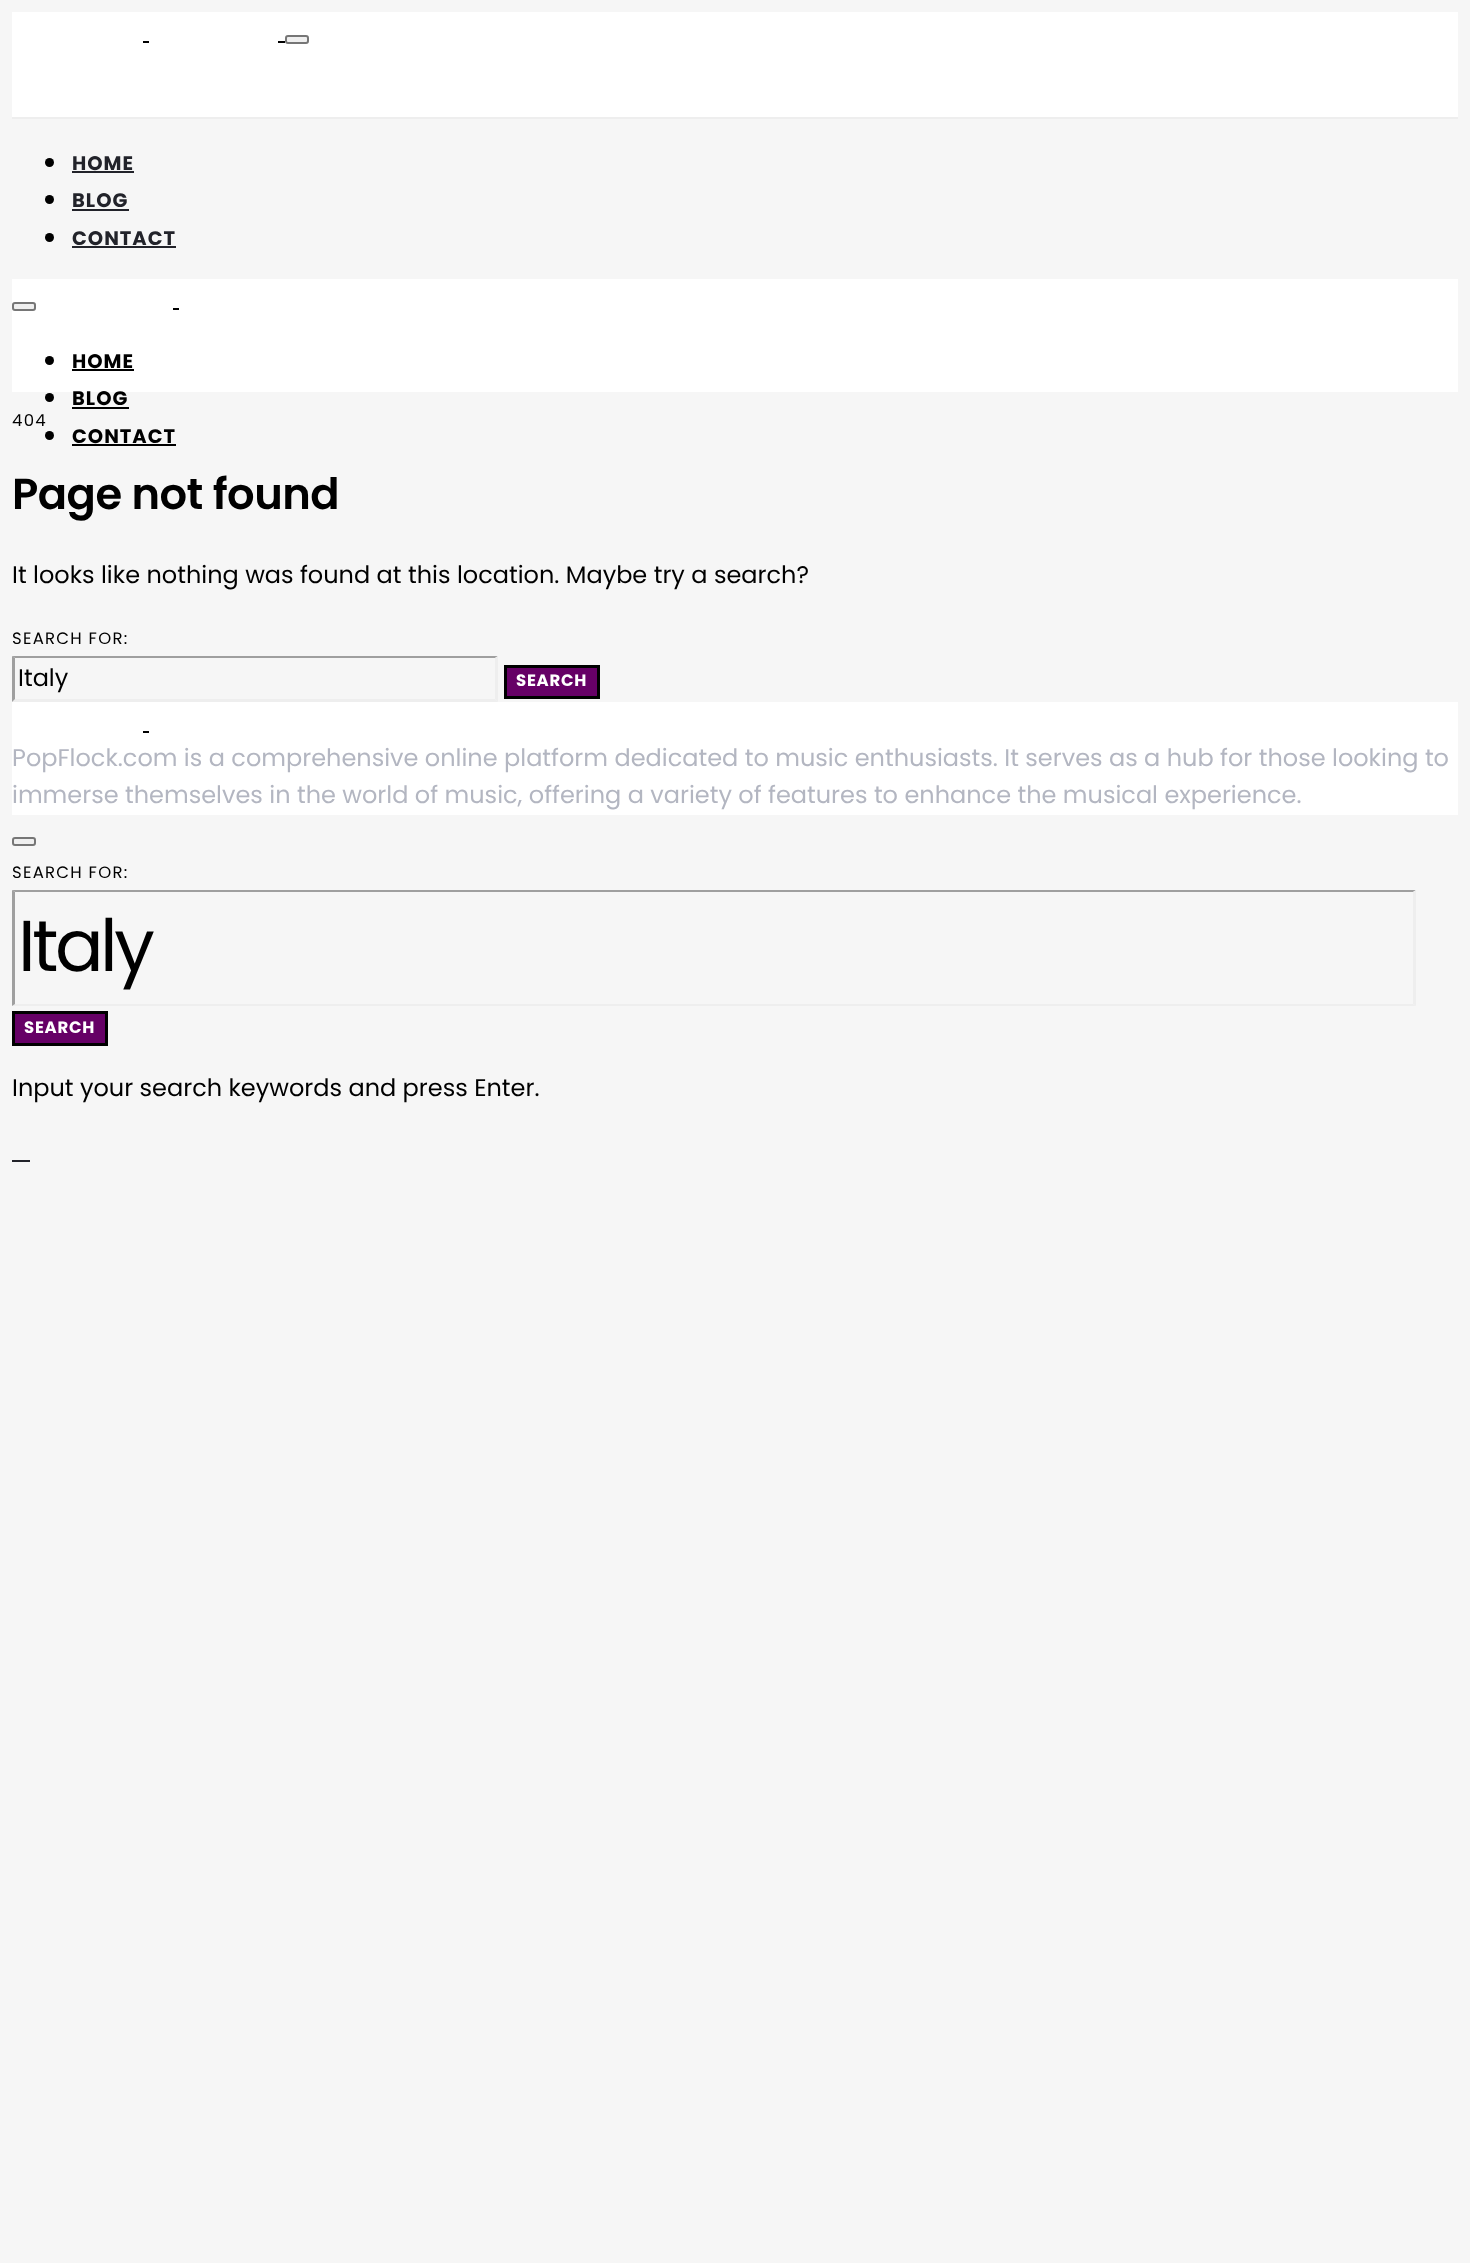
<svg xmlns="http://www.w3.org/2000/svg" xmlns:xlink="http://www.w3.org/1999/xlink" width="1470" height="2263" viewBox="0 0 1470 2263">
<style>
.cls-1{font:bold 19.5px Poppins;letter-spacing:1px;fill:#22232a}
.cls-2{font:bold 19.5px Poppins;letter-spacing:1px;fill:#000000}
.cls-3{font:16.5px Poppins;letter-spacing:1.25px;fill:#000000}
.cls-4{font:600 43.25px Poppins;letter-spacing:-0.5px;fill:#000000}
.cls-5{font:24px Poppins;fill:#000000}
.cls-6{font:bold 16.5px Poppins;letter-spacing:0.75px;fill:#ffffff}
.cls-7{font:24px Poppins;fill:#b3b6c1}
.cls-8{font:72px Poppins;letter-spacing:-3.5px;fill:#000000}
</style>
<rect width="100%" height="100%" fill="#f6f6f6"/>
<rect fill="#ffffff" x="12" y="12" width="1446" height="105"/>
<rect fill="#eeeeee" x="12" y="117" width="1446" height="2"/>
<rect fill="#000000" x="143" y="41" width="6" height="2"/>
<rect fill="#000000" x="278" y="41" width="7" height="2"/>
<rect fill="#efefef" stroke="#767676" stroke-width="2" x="286" y="36" width="22" height="7" rx="2"/>
<circle fill="#000000" cx="49.5" cy="162.5" r="4.5"/>
<rect fill="#22232a" x="72" y="171" width="62" height="2"/>
<circle fill="#000000" cx="49.5" cy="199.5" r="4.5"/>
<rect fill="#22232a" x="72" y="209" width="57" height="2"/>
<circle fill="#000000" cx="49.5" cy="237.5" r="4.5"/>
<rect fill="#22232a" x="72" y="246" width="104" height="2"/>
<rect fill="#ffffff" x="12" y="279" width="1446" height="113"/>
<rect fill="#efefef" stroke="#767676" stroke-width="2" x="13" y="303" width="22" height="7" rx="2"/>
<rect fill="#000000" x="173" y="308" width="6" height="2"/>
<circle fill="#000000" cx="49.5" cy="360.5" r="4.5"/>
<rect fill="#000000" x="72" y="369" width="62" height="2"/>
<circle fill="#000000" cx="49.5" cy="397.5" r="4.5"/>
<rect fill="#000000" x="72" y="407" width="57" height="2"/>
<circle fill="#000000" cx="49.5" cy="435.5" r="4.5"/>
<rect fill="#000000" x="72" y="444" width="104" height="2"/>
<path fill="#9f9f9f" d="M12 656H498L495 658H15Z"/>
<path fill="#eeeeee" d="M498 656V702L495 699V658Z"/>
<path fill="#eeeeee" d="M498 702H12L15 699H495Z"/>
<path fill="#9f9f9f" d="M12 702V656L15 658V699Z"/>
<rect fill="#660066" stroke="#000000" stroke-width="3" x="505.5" y="666.5" width="93" height="31"/>
<rect fill="#ffffff" x="12" y="702" width="1446" height="113"/>
<rect fill="#000000" x="143" y="731" width="6" height="2"/>
<rect fill="#efefef" stroke="#767676" stroke-width="2" x="13" y="838" width="22" height="7" rx="2"/>
<path fill="#9f9f9f" d="M12 890H1416L1413 892H15Z"/>
<path fill="#eeeeee" d="M1416 890V1006L1413 1004V892Z"/>
<path fill="#eeeeee" d="M1416 1006H12L15 1004H1413Z"/>
<path fill="#9f9f9f" d="M12 1006V890L15 892V1004Z"/>
<rect fill="#660066" stroke="#000000" stroke-width="3" x="13.5" y="1012.5" width="93" height="32"/>
<rect fill="#22232a" x="12" y="1160" width="18" height="2"/>
<text class="cls-1"><tspan x="72" y="170">HOME</tspan><tspan x="72" y="207">BLOG</tspan><tspan x="72" y="245">CONTACT</tspan></text>
<text class="cls-2"><tspan x="72" y="368">HOME</tspan><tspan x="72" y="405">BLOG</tspan><tspan x="72" y="443">CONTACT</tspan></text>
<text class="cls-3" x="12" y="426">404</text>
<text class="cls-4" x="12" y="509">Page not found</text>
<text class="cls-5" x="12" y="583">It looks like nothing was found at this location. Maybe try a search?</text>
<text class="cls-3" x="12" y="644">SEARCH FOR:</text>
<text class="cls-5" x="18" y="686">Italy</text>
<text class="cls-6" x="516" y="686">SEARCH</text>
<text class="cls-7"><tspan x="12" y="766">PopFlock.com is a comprehensive online platform dedicated to music enthusiasts. It serves as a hub for those looking to</tspan><tspan x="12" y="803">immerse themselves in the world of music, offering a variety of features to enhance the musical experience.</tspan></text>
<text class="cls-3" x="12" y="878">SEARCH FOR:</text>
<text class="cls-8" x="18" y="971">Italy</text>
<text class="cls-6" x="24" y="1033">SEARCH</text>
<text class="cls-5" x="12" y="1096">Input your search keywords and press Enter.</text>
</svg>
